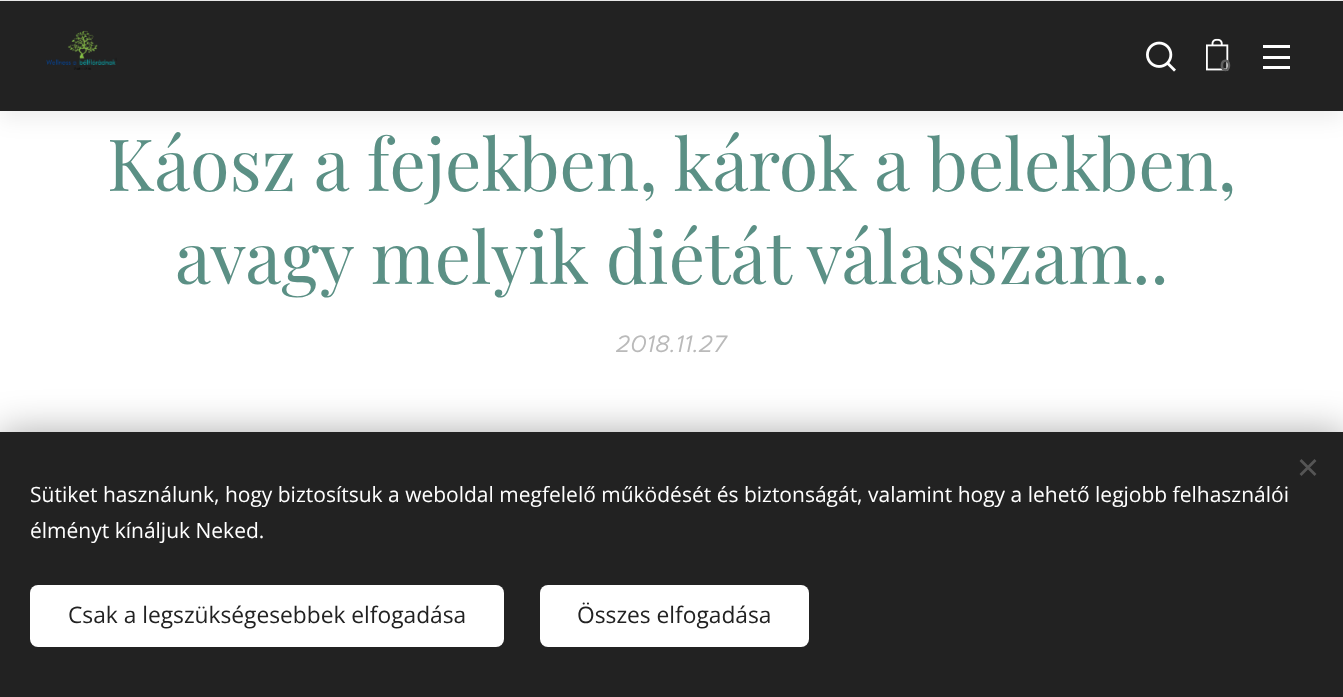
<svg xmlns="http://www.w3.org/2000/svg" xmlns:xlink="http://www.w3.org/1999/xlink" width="1343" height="697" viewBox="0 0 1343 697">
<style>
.cls-1{font:bold 16px Montserrat;fill:#5f5f5f}
.cls-2{font:72px Playfair Display;fill:#5b9085}
.cls-3{font:italic 24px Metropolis;fill:#bababa}
.cls-4{font:21px Open Sans;fill:#ffffff}
.cls-5{font:22.75px Open Sans;fill:#222222}
</style>
<rect width="100%" height="100%" fill="#ffffff"/>
<rect fill="#000000" fill-opacity="0.07" filter="blur(11px)" x="0" y="8" width="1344" height="111"/>
<rect fill="#222222" x="0" y="1" width="1343" height="110"/>
<image xlink:href="image0.png" x="46" y="30" width="71" height="40"/>
<rect fill="#e8e8e8" x="0" y="0" width="1343" height="1"/>
<image xlink:href="image1.png" x="1146" y="41" width="30" height="31"/>
<image xlink:href="image2.png" x="1206" y="38" width="23" height="33"/>
<rect fill="#ffffff" x="1263" y="56" width="27" height="3"/>
<rect fill="#ffffff" x="1263" y="45" width="27" height="3"/>
<rect fill="#ffffff" x="1263" y="66" width="27" height="3"/>
<rect fill="#000000" fill-opacity="0.33" filter="blur(19px)" x="0" y="432" width="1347" height="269"/>
<rect fill="#222222" x="0" y="432" width="1343" height="265"/>
<path fill="#555555" d="M1299.5 474L1314.5 459L1316.5 461L1301.5 476Z"/>
<path fill="#555555" d="M1301.5 459L1316.5 474L1314.5 476L1299.5 461Z"/>
<rect fill="#ffffff" x="30" y="585" width="474" height="62" rx="8"/>
<rect fill="#ffffff" x="540" y="585" width="269" height="62" rx="8"/>
<text class="cls-1" x="1220" y="71">0</text>
<text class="cls-2" x="107" y="191">Káosz a fejekben, károk a belekben,</text>
<text class="cls-2" x="175" y="284">avagy melyik diétát válasszam..</text>
<text class="cls-3" x="616" y="352">2018.11.27</text>
<text class="cls-4"><tspan x="30" y="502">Sütiket használunk, hogy biztosítsuk a weboldal megfelelő működését és biztonságát, valamint hogy a lehető legjobb felhasználói</tspan><tspan x="30" y="538">élményt kínáljuk Neked.</tspan></text>
<text class="cls-5" x="68" y="623">Csak a legszükségesebbek elfogadása</text>
<text class="cls-5" x="577" y="623">Összes elfogadása</text>
</svg>
